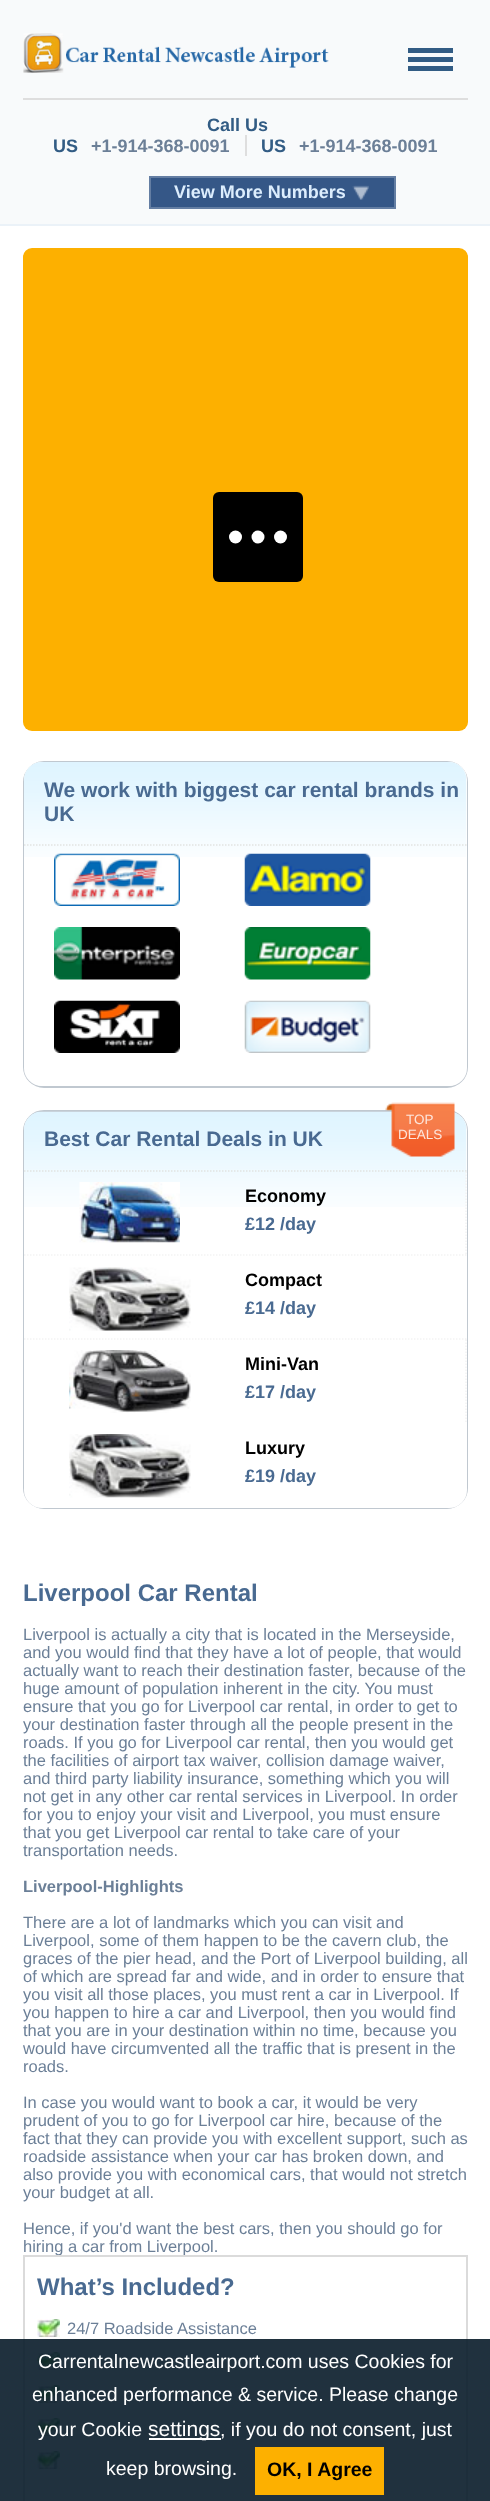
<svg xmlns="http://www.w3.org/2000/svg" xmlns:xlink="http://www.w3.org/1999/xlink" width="490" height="2501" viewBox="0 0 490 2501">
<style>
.cls-1{font:bold 18px Liberation Sans;fill:#325c84}
.cls-2{font:bold 18px Liberation Sans;fill:#6b7f97}
.cls-3{font:bold 18px Liberation Sans;fill:#dcedfd}
.cls-4{font:bold 21px Liberation Sans;fill:#496a91}
.cls-5{font:13.5px Liberation Sans;fill:#fde5db}
.cls-6{font:bold 18px Liberation Sans;fill:#000000}
.cls-7{font:bold 18px Liberation Sans;fill:#496a91}
.cls-8{font:bold 24px Liberation Sans;fill:#496a91}
.cls-9{font:16.5px Liberation Sans;fill:#6b7f97}
.cls-10{font:bold 16.5px Liberation Sans;fill:#6b7f97}
.cls-11{font:19.5px Liberation Sans;fill:#ffffff}
.cls-12{font:21px Liberation Sans;fill:#ffffff}
.cls-13{font:bold 19.5px Liberation Sans;fill:#000000}
</style>
<rect width="100%" height="100%" fill="#ffffff"/>
<rect fill="#f8fafb" x="0" y="0" width="490" height="224"/>
<rect fill="#ebf2f8" x="0" y="224" width="490" height="2"/>
<image xlink:href="image0.png" x="23" y="33" width="306" height="40"/>
<rect fill="#325c84" x="408" y="48" width="45" height="5"/>
<rect fill="#325c84" x="408" y="57" width="45" height="5"/>
<rect fill="#325c84" x="408" y="66" width="45" height="5"/>
<rect fill="#dedede" x="23" y="98" width="445" height="2"/>
<rect fill="#dedede" x="245" y="135" width="2" height="21"/>
<rect fill="#355787" x="151" y="178" width="243" height="29"/>
<image xlink:href="image1.png" x="352" y="185" width="17" height="15"/>
<rect fill="none" stroke="#647ea3" stroke-width="2" x="150" y="177" width="245" height="31"/>
<rect fill="#fdb000" x="23" y="248" width="445" height="483" rx="9"/>
<rect fill="#000000" x="213" y="492" width="90" height="90" rx="6"/>
<circle fill="#ffffff" cx="235.5" cy="537" r="6.5"/>
<circle fill="#ffffff" cx="258" cy="537" r="6.5"/>
<circle fill="#ffffff" cx="280.5" cy="537" r="6.5"/>
<rect fill="none" stroke="#c0c8d0" stroke-width="2" x="24" y="762" width="443" height="325" rx="20"/>
<rect fill="#ffffff" x="24" y="762" width="443" height="324" rx="18"/>
<image xlink:href="image2.png" x="24" y="762" width="443" height="95"/>
<path fill="none" stroke="#e2e3e2" stroke-width="1.5" stroke-dasharray="1.5 1.5" d="M24 845H466.5"/>
<image xlink:href="image3.png" x="54" y="853" width="126" height="53"/>
<image xlink:href="image4.png" x="244" y="853" width="127" height="53"/>
<image xlink:href="image5.png" x="54" y="927" width="126" height="53"/>
<image xlink:href="image6.png" x="244" y="927" width="127" height="53"/>
<image xlink:href="image7.png" x="54" y="1000" width="126" height="53"/>
<image xlink:href="image8.png" x="244" y="1000" width="127" height="53"/>
<rect fill="none" stroke="#c0c8d0" stroke-width="2" x="24" y="1111" width="443" height="397" rx="20"/>
<rect fill="#ffffff" x="24" y="1112" width="443" height="396" rx="18"/>
<image xlink:href="image9.png" x="24" y="1111" width="443" height="96"/>
<path fill="none" stroke="#e2e3e2" stroke-width="1.5" stroke-dasharray="1.5 1.5" d="M24 1171H466.5"/>
<image xlink:href="image10.png" x="385" y="1102" width="70" height="55"/>
<path fill="none" stroke="#f3f3f3" stroke-width="1.5" stroke-dasharray="1.5 1.5" d="M466 1171.5V1255.5"/>
<path fill="none" stroke="#f3f3f3" stroke-width="1.5" stroke-dasharray="1.5 1.5" d="M24 1255H466.5"/>
<image xlink:href="image11.png" x="79" y="1182" width="101" height="61"/>
<path fill="none" stroke="#f3f3f3" stroke-width="1.5" stroke-dasharray="1.5 1.5" d="M24 1339H466.5"/>
<image xlink:href="image12.png" x="69" y="1267" width="122" height="64"/>
<path fill="none" stroke="#f3f3f3" stroke-width="1.5" stroke-dasharray="1.5 1.5" d="M466 1339.5V1423.5"/>
<image xlink:href="image13.png" x="69" y="1350" width="122" height="63"/>
<image xlink:href="image14.png" x="69" y="1434" width="122" height="64"/>
<text class="cls-1" x="207" y="131">Call Us</text>
<text class="cls-1" x="53" y="152">US</text>
<text class="cls-2" x="91" y="152">+1-914-368-0091</text>
<text class="cls-1" x="261" y="152">US</text>
<text class="cls-2" x="299" y="152">+1-914-368-0091</text>
<text class="cls-3" x="174" y="198">View More Numbers</text>
<text class="cls-4"><tspan x="44" y="797">We work with biggest car rental brands in</tspan><tspan x="44" y="821">UK</tspan></text>
<text class="cls-4" x="44" y="1146">Best Car Rental Deals in UK</text>
<text class="cls-5" x="406" y="1124">TOP</text>
<text class="cls-5" x="398" y="1139">DEALS</text>
<text class="cls-6" x="245" y="1202">Economy</text>
<text class="cls-7" x="245" y="1230">£12 /day</text>
<text class="cls-6" x="245" y="1286">Compact</text>
<text class="cls-7" x="245" y="1314">£14 /day</text>
<text class="cls-6" x="245" y="1370">Mini-Van</text>
<text class="cls-7" x="245" y="1398">£17 /day</text>
<text class="cls-6" x="245" y="1454">Luxury</text>
<text class="cls-7" x="245" y="1482">£19 /day</text>
<text class="cls-8" x="23" y="1601">Liverpool Car Rental</text>
<text class="cls-9"><tspan x="23" y="1640">Liverpool is actually a city that is located in the Merseyside,</tspan><tspan x="23" y="1658">and you would find that they have a lot of people, that would</tspan><tspan x="23" y="1676">actually want to reach their destination faster, because of the</tspan><tspan x="23" y="1694">huge amount of population inherent in the city. You must</tspan><tspan x="23" y="1712">ensure that you go for Liverpool car rental, in order to get to</tspan><tspan x="23" y="1730">your destination faster through all the people present in the</tspan><tspan x="23" y="1748">roads. If you go for Liverpool car rental, then you would get</tspan><tspan x="23" y="1766">the facilities of airport tax waiver, collision damage waiver,</tspan><tspan x="23" y="1784">and third party liability insurance, something which you will</tspan><tspan x="23" y="1802">not get in any other car rental services in Liverpool. In order</tspan><tspan x="23" y="1820">for you to enjoy your visit and Liverpool, you must ensure</tspan><tspan x="23" y="1838">that you get Liverpool car rental to take care of your</tspan><tspan x="23" y="1856">transportation needs.</tspan></text>
<text class="cls-10" x="23" y="1892">Liverpool-Highlights</text>
<text class="cls-9"><tspan x="23" y="1928">There are a lot of landmarks which you can visit and</tspan><tspan x="23" y="1946">Liverpool, some of them happen to be the cavern club, the</tspan><tspan x="23" y="1964">graces of the pier head, and the Port of Liverpool building, all</tspan><tspan x="23" y="1982">of which are spread far and wide, and in order to ensure that</tspan><tspan x="23" y="2000">you visit all those places, you must rent a car in Liverpool. If</tspan><tspan x="23" y="2018">you happen to hire a car and Liverpool, then you would find</tspan><tspan x="23" y="2036">that you are in your destination within no time, because you</tspan><tspan x="23" y="2054">would have circumvented all the traffic that is present in the</tspan><tspan x="23" y="2072">roads.</tspan></text>
<text class="cls-9"><tspan x="23" y="2108">In case you would want to book a car, it would be very</tspan><tspan x="23" y="2126">prudent of you to go for Liverpool car hire, because of the</tspan><tspan x="23" y="2144">fact that they can provide you with excellent support, such as</tspan><tspan x="23" y="2162">roadside assistance when your car has broken down, and</tspan><tspan x="23" y="2180">also provide you with economical cars, that would not stretch</tspan><tspan x="23" y="2198">your budget at all.</tspan></text>
<text class="cls-9"><tspan x="23" y="2234">Hence, if you'd want the best cars, then you should go for</tspan><tspan x="23" y="2252">hiring a car from Liverpool.</tspan></text>
<rect fill="none" stroke="#dbdbdb" stroke-width="2" x="24" y="2256" width="443" height="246"/>
<text class="cls-8" x="37" y="2295">What’s Included?</text>
<image xlink:href="image15.png" x="37" y="2319" width="23" height="18"/>
<text class="cls-9" x="67" y="2334">24/7 Roadside Assistance</text>
<image xlink:href="image15.png" x="37" y="2352" width="23" height="18"/>
<image xlink:href="image15.png" x="37" y="2385" width="23" height="18"/>
<image xlink:href="image15.png" x="37" y="2418" width="23" height="18"/>
<image xlink:href="image15.png" x="37" y="2451" width="23" height="18"/>
<rect fill="#081b29" fill-opacity="0.9" x="0" y="2339" width="490" height="162"/>
<text class="cls-11" x="38" y="2368">Carrentalnewcastleairport.com uses Cookies for</text>
<text class="cls-11" x="32" y="2401">enhanced performance &amp; service. Please change</text>
<text class="cls-11" x="38" y="2436">your Cookie</text>
<rect fill="#ffffff" x="149" y="2438" width="72" height="2"/>
<text class="cls-12" x="148" y="2436">settings</text>
<text class="cls-11" x="220" y="2436">, if you do not consent, just</text>
<text class="cls-11" x="106" y="2475">keep browsing.</text>
<rect fill="#fdb000" x="255" y="2447" width="129" height="48"/>
<text class="cls-13" x="267" y="2476">OK, I Agree</text>
</svg>
